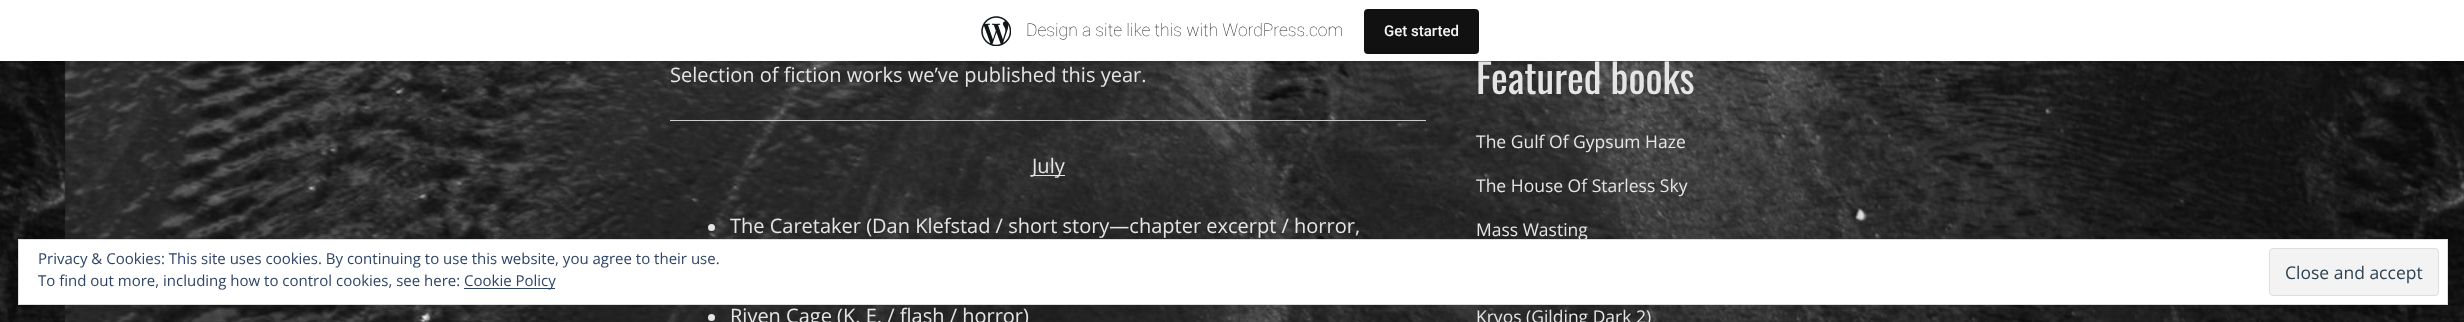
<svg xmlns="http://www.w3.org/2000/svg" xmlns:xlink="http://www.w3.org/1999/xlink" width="2464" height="322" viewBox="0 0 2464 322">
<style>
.cls-1{font:100 17.5px Roboto;fill:#171717}
.cls-2{font:500 15px Roboto;fill:#f6f7f7}
.cls-3{font:20px Open Sans;fill:#e5e5e5}
.cls-4{font:40px Oswald;fill:#e5e5e5}
.cls-5{font:17.5px Open Sans;fill:#e5e5e5}
.cls-6{font:15px Open Sans;fill:#2e4467}
.cls-7{font:17.5px Open Sans;fill:#2e4453}
</style>
<rect width="100%" height="100%" fill="#ffffff"/>
<image xlink:href="image0.png" x="0" y="61" width="2464" height="261"/>
<rect fill="#000000" fill-opacity="0.05" filter="blur(1px)" x="0" y="1" width="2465" height="62"/>
<path fill="#000000" fill-opacity="0.08" d="M1 61V65H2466V4H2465V61Z"/>
<rect fill="#ffffff" x="0" y="0" width="2464" height="61"/>
<image xlink:href="image1.png" x="981" y="16" width="30" height="30"/>
<rect fill="#111111" x="1364" y="9" width="115" height="45" rx="4"/>
<rect fill="#cccccc" x="670" y="120" width="756" height="1"/>
<rect fill="#e5e5e5" x="1031" y="175" width="34" height="1"/>
<circle fill="#e5e5e5" cx="711.5" cy="227.5" r="3.5"/>
<circle fill="#e5e5e5" cx="711.5" cy="317.5" r="3.5"/>
<text class="cls-1" x="1026" y="36">Design a site like this with WordPress.com</text>
<text class="cls-2" x="1384" y="36">Get started</text>
<text class="cls-3" x="670" y="82">Selection of fiction works we’ve published this year.</text>
<text class="cls-3" x="1032" y="173">July</text>
<text class="cls-3" x="730" y="233">The Caretaker (Dan Klefstad / short story—chapter excerpt / horror,</text>
<text class="cls-3" x="730" y="323">Riven Cage (K. E. / flash / horror)</text>
<text class="cls-4" x="1476" y="94">Featured books</text>
<text class="cls-5" x="1476" y="148">The Gulf Of Gypsum Haze</text>
<text class="cls-5" x="1476" y="192">The House Of Starless Sky</text>
<text class="cls-5" x="1476" y="236">Mass Wasting</text>
<text class="cls-5" x="1476" y="323">Kryos (Gilding Dark 2)</text>
<rect fill="#ffffff" stroke="#dedede" x="18.5" y="239.5" width="2429" height="65"/>
<text class="cls-6"><tspan x="38" y="264">Privacy &amp; Cookies: This site uses cookies. By continuing to use this website, you agree to their use.</tspan><tspan x="38" y="286">To find out more, including how to control cookies, see here:</tspan></text>
<rect fill="#2e4467" x="464" y="288" width="91" height="1"/>
<text class="cls-6" x="464" y="286">Cookie Policy</text>
<rect fill="#f3f3f3" stroke="#dedede" x="2269.5" y="248.5" width="169" height="47" rx="3.5"/>
<text class="cls-7" x="2285" y="279">Close and accept</text>
</svg>
